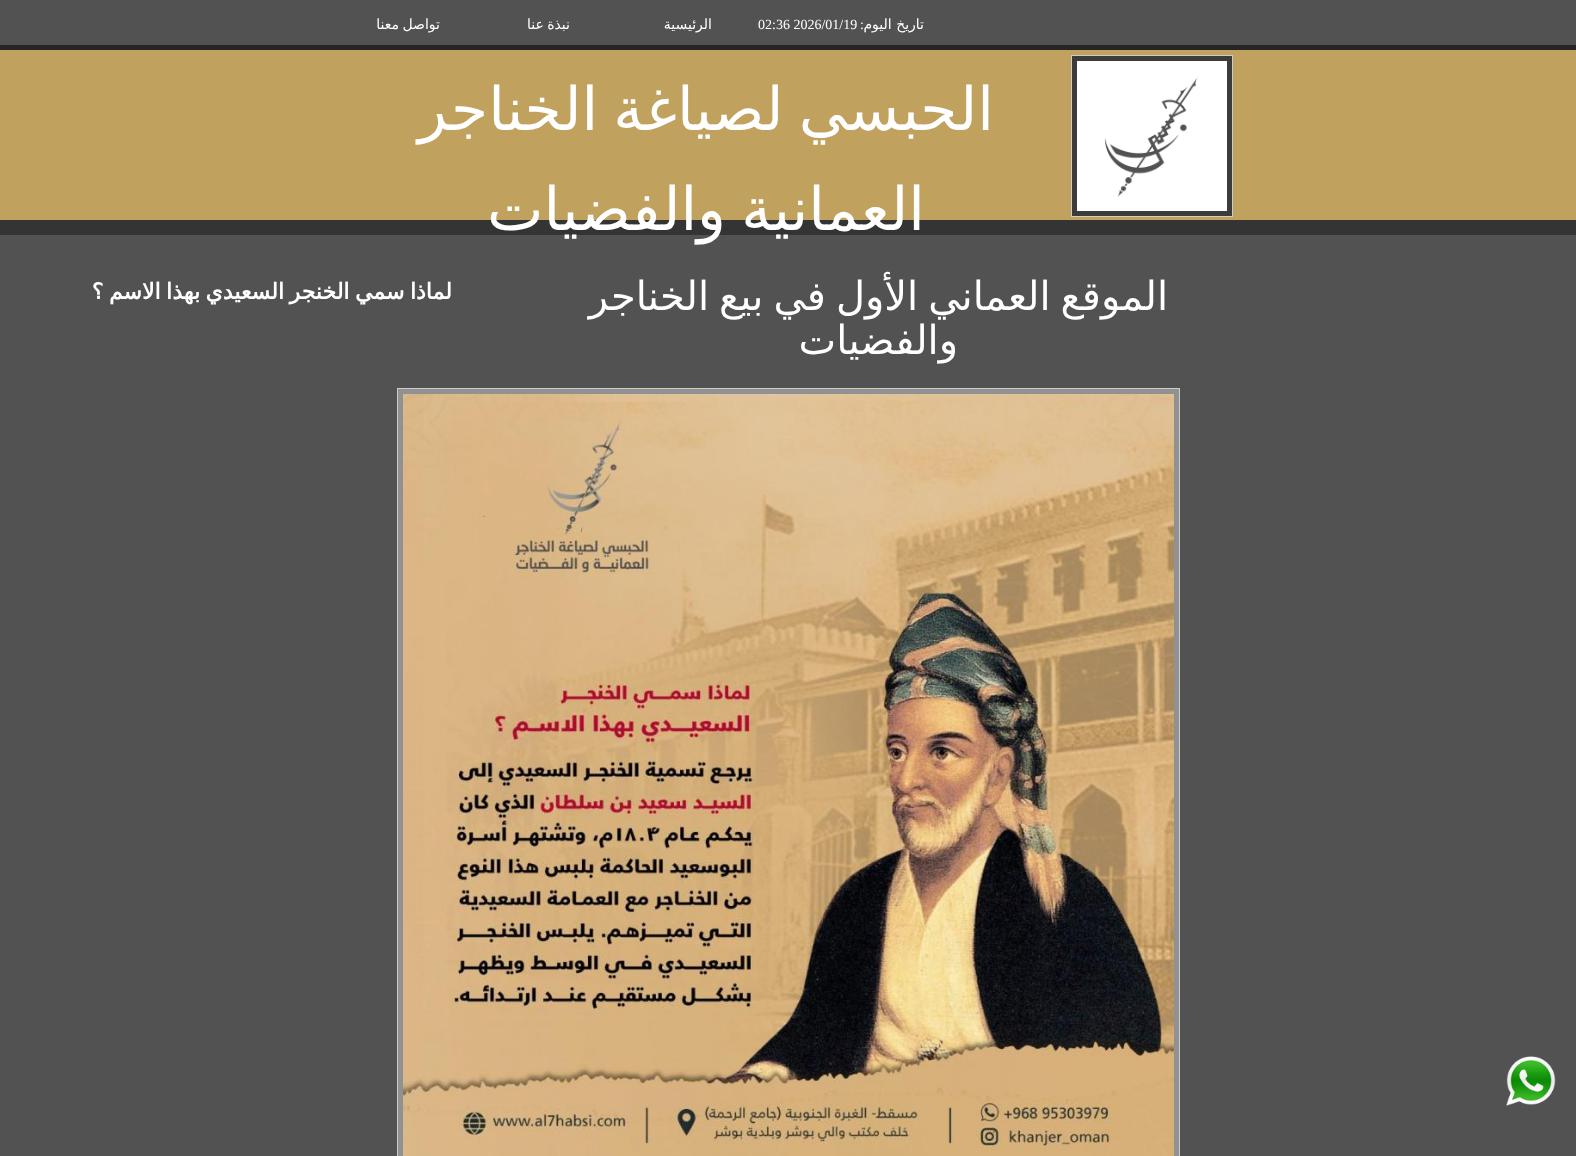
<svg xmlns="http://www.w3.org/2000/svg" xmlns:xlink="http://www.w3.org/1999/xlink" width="1576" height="1156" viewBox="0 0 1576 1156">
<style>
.cls-1{font:14px DejaVu Sans;direction:rtl;fill:#ffffff}
.cls-2{font:14px Liberation Serif;direction:rtl;fill:#ffffff}
.cls-3{font:14px Liberation Serif;fill:#ffffff}
.cls-4{font:60px DejaVu Sans;direction:rtl;fill:#ffffff}
.cls-5{font:40px DejaVu Sans;direction:rtl;fill:#ffffff}
.cls-6{font:bold 22px DejaVu Sans;direction:rtl;fill:#ffffff}
</style>
<rect width="100%" height="100%" fill="#343434"/>
<rect fill="#525252" x="0" y="0" width="1576" height="45"/>
<rect fill="#252525" x="0" y="45" width="1576" height="5"/>
<rect fill="#c0a15d" x="0" y="50" width="1576" height="170"/>
<rect fill="#3b3b3b" stroke="#cccccc" x="1071.5" y="55.5" width="161" height="161"/>
<image xlink:href="image0.png" x="1077" y="61" width="150" height="150"/>
<rect fill="#525252" x="0" y="235" width="1576" height="921"/>
<rect fill="#919191" stroke="#cccccc" x="397.5" y="388.5" width="782" height="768"/>
<image xlink:href="image1.png" x="403" y="394" width="771" height="762"/>
<image xlink:href="image2.png" x="1506" y="1056" width="50" height="50"/>
<text class="cls-1" x="924" y="29">تاريخ اليوم</text>
<text class="cls-2" x="864" y="29">:</text>
<text class="cls-3" x="758" y="29">02:36 2026/01/19</text>
<text class="cls-1" x="712" y="29">الرئيسية</text>
<text class="cls-1" x="570" y="29" word-spacing="-1">نبذة عنا</text>
<text class="cls-1" x="440" y="29" word-spacing="-1">تواصل معنا</text>
<text class="cls-4" x="994" y="130" word-spacing="-4">الحبسي لصياغة الخناجر</text>
<text class="cls-4" x="925" y="230" word-spacing="-4">العمانية والفضيات</text>
<text class="cls-5" x="1168" y="310" word-spacing="-2.75">الموقع العماني الأول في بيع الخناجر</text>
<text class="cls-5" x="958" y="354">والفضيات</text>
<text class="cls-6" x="452" y="299" word-spacing="-1.5">لماذا سمي الخنجر السعيدي بهذا الاسم ؟</text>
</svg>
